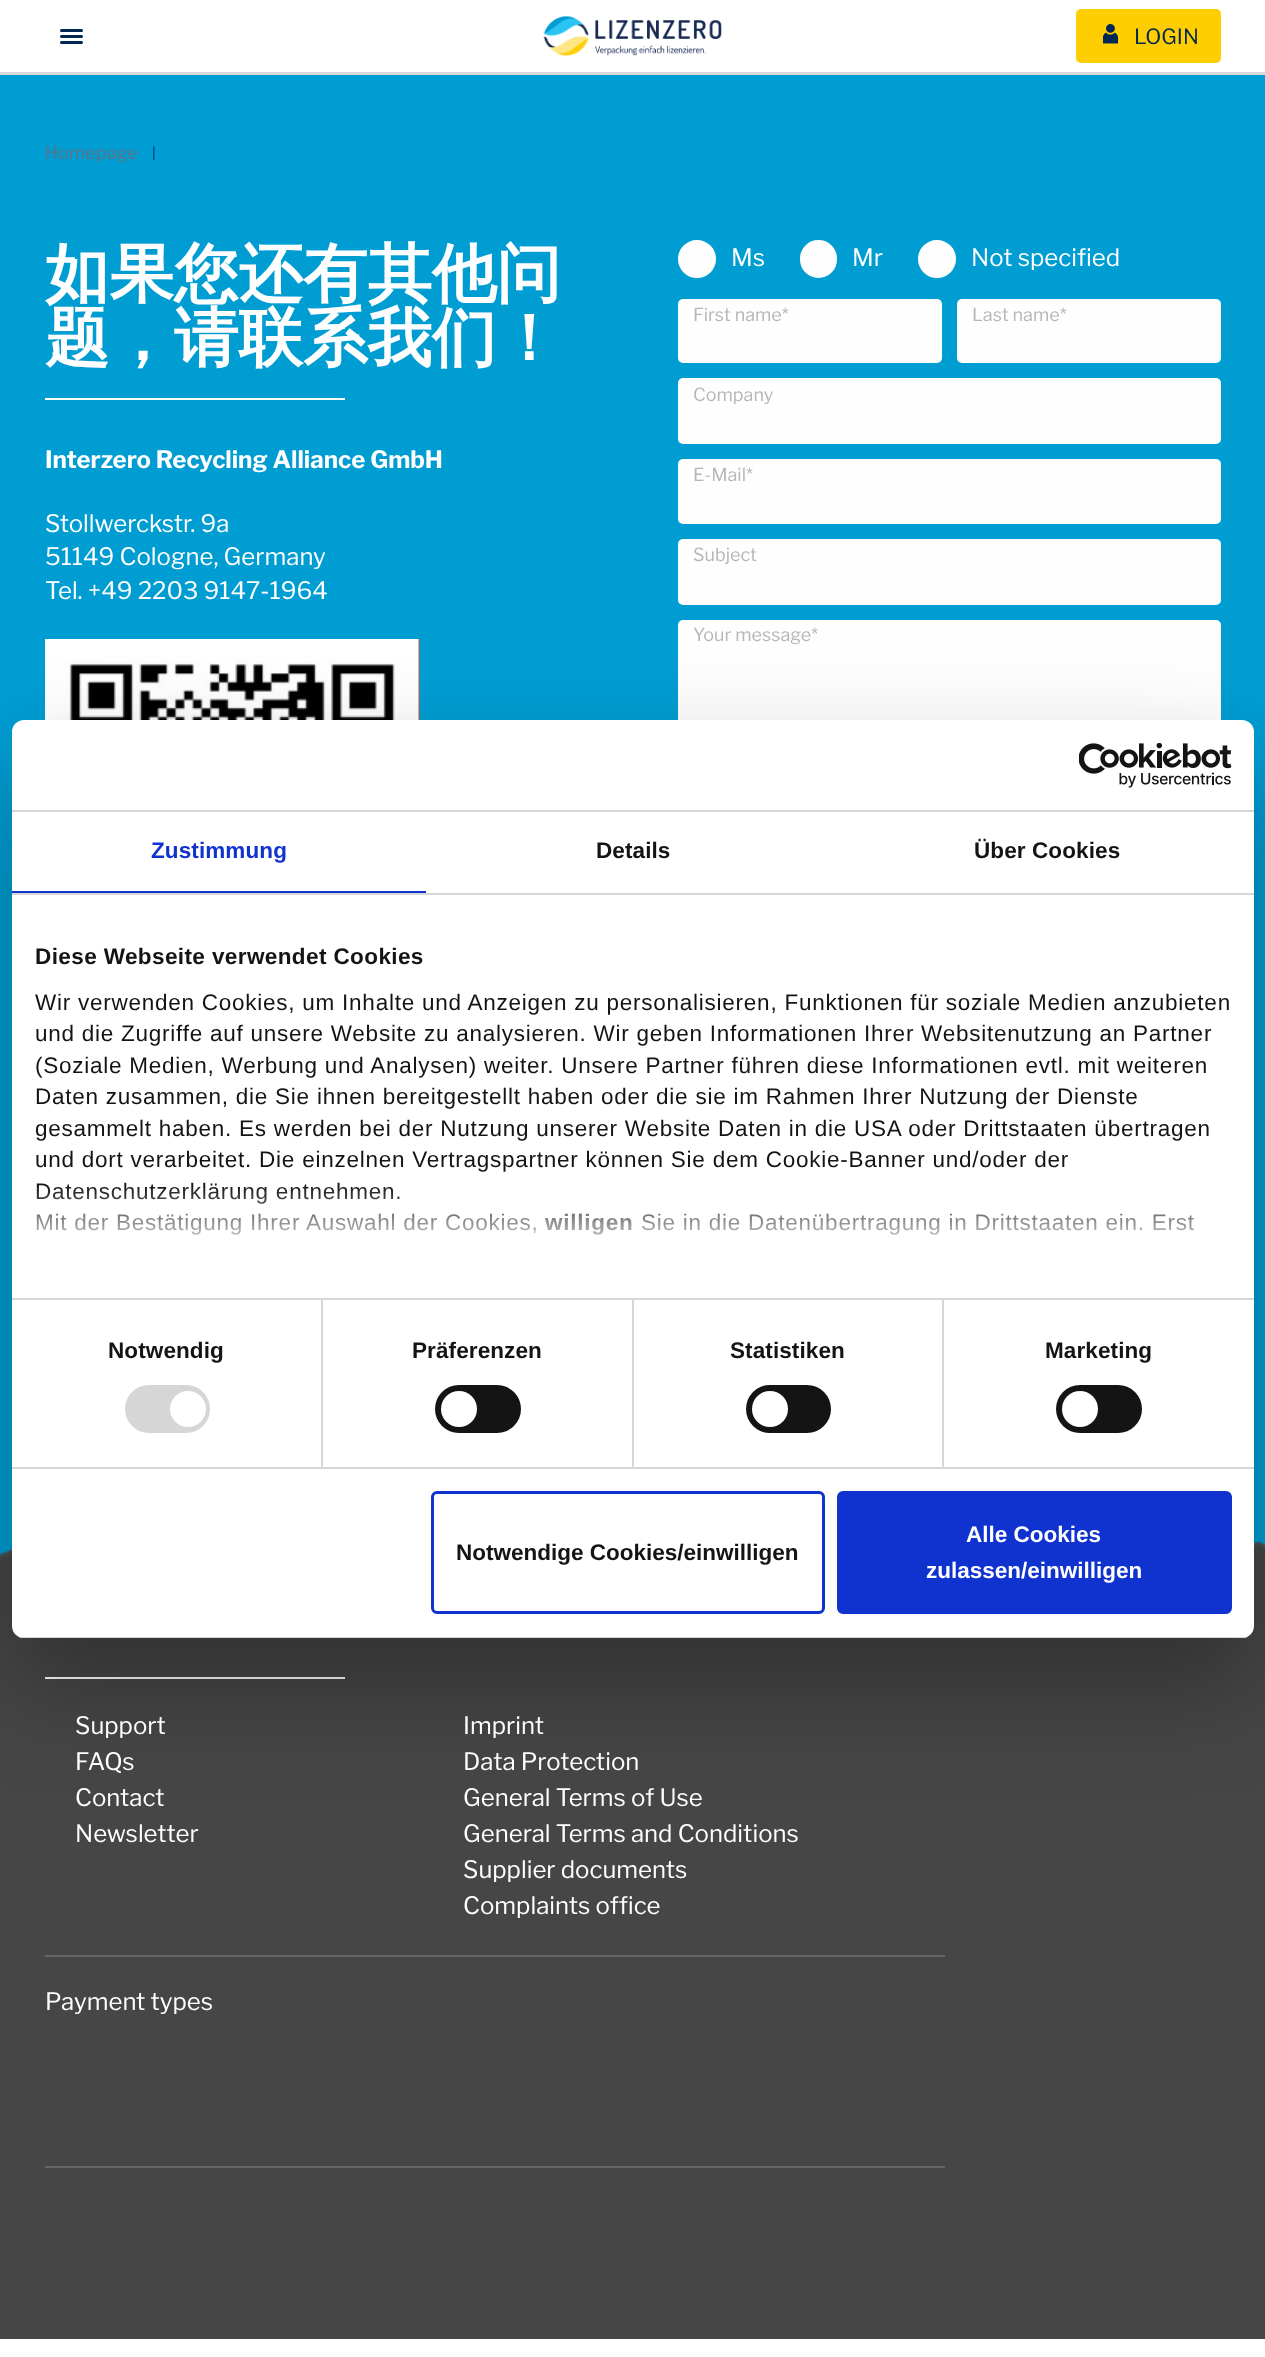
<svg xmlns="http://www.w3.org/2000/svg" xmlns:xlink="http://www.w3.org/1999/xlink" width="1265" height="2357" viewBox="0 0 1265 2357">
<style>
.cls-1{font:21px Libre Franklin;fill:#002652}
.cls-2{font:18px Libre Franklin;fill:#5f7285}
.cls-3{font:14px Libre Franklin;fill:#002652}
.cls-4{font:bold 64.5px WenQuanYi Zen Hei;fill:#fefefe}
.cls-5{font:bold 24px Libre Franklin;fill:#fefefe}
.cls-6{font:24px Libre Franklin;fill:#fefefe}
.cls-7{font:18px Libre Franklin;fill:#b6b6b6}
.cls-8{font:bold 22.5px Liberation Sans;letter-spacing:0.1px;fill:#1032cf}
.cls-9{font:bold 22.5px Liberation Sans;letter-spacing:0.1px;fill:#141414}
.cls-10{font:bold 22.5px Liberation Sans;letter-spacing:0.4px;fill:#141414}
.cls-11{font:22.5px Liberation Sans;letter-spacing:0.75px;fill:#141414}
.cls-12{font:bold 22.5px Liberation Sans;letter-spacing:0.75px;fill:#141414}
.cls-13{font:bold 22.5px Liberation Sans;fill:#141414}
.cls-14{font:bold 22.5px Liberation Sans;fill:#fefefe}
</style>
<defs>
<clipPath id="clip1"><rect x="12" y="720" width="1242" height="918" rx="12"/></clipPath>
<linearGradient id="g1" gradientUnits="userSpaceOnUse" x1="623" y1="1298" x2="623" y2="1185"><stop offset="0" stop-color="#ffffff"/><stop offset="0.5" stop-color="#ffffff" stop-opacity="0.8"/><stop offset="1" stop-color="#ffffff" stop-opacity="0"/></linearGradient>
</defs>
<rect width="100%" height="100%" fill="#ffffff"/>
<rect fill="#d9d9d9" x="0" y="72" width="1265" height="3"/>
<rect fill="#002652" x="60" y="29" width="23" height="3" rx="1.5"/>
<rect fill="#002652" x="60" y="35" width="23" height="3" rx="1.5"/>
<rect fill="#002652" x="60" y="41" width="23" height="3" rx="1.5"/>
<image xlink:href="image0.png" x="543" y="16" width="179" height="41"/>
<rect fill="#ffce00" x="1076" y="9" width="145" height="54" rx="5"/>
<image xlink:href="image1.png" x="1103" y="24" width="15" height="20"/>
<rect fill="#009dd3" x="0" y="75" width="1265" height="1401"/>
<rect fill="#fefefe" x="45" y="398" width="300" height="2"/>
<image xlink:href="image2.png" x="45" y="639" width="375" height="81"/>
<circle fill="#fefefe" stroke="#fefefe" stroke-width="3" cx="697" cy="259" r="17.5"/>
<rect fill="#fefefe" stroke="#fefefe" stroke-width="3" x="801.5" y="241.5" width="34" height="35" rx="17"/>
<circle fill="#fefefe" stroke="#fefefe" stroke-width="3" cx="937" cy="259" r="17.5"/>
<rect fill="#fefefe" x="678" y="299" width="264" height="64" rx="5"/>
<rect fill="#fefefe" x="957" y="299" width="264" height="64" rx="5"/>
<rect fill="#fefefe" x="678" y="378" width="543" height="66" rx="5"/>
<rect fill="#fefefe" x="678" y="459" width="543" height="65" rx="5"/>
<rect fill="#fefefe" x="678" y="539" width="543" height="66" rx="5"/>
<rect fill="#fefefe" x="678" y="620" width="543" height="112" rx="5"/>
<rect fill="#464646" x="0" y="1540" width="1265" height="799"/>
<image xlink:href="image3.png" x="0" y="1476" width="1265" height="83"/>
<rect fill="#fefefe" x="45" y="1677" width="300" height="2"/>
<rect fill="#6a6565" x="45" y="1955" width="900" height="2"/>
<rect fill="#6a6565" x="45" y="2166" width="900" height="2"/>
<rect fill="#000000" fill-opacity="0.3" filter="blur(51px)" x="12" y="768" width="1242" height="918" rx="12"/>
<rect fill="#ffffff" x="12" y="720" width="1242" height="918" rx="12"/>
<rect fill="#d6d6d6" x="12" y="810" width="1242" height="2"/>
<image xlink:href="image4.png" x="1079" y="743" width="153" height="45"/>
<rect fill="#d6d6d6" x="12" y="893" width="1242" height="2"/>
<rect fill="#1032cf" x="12" y="891" width="414" height="2"/>
<rect fill="#d6d6d6" x="321" y="1299" width="2" height="168"/>
<rect fill="#d6d6d6" x="632" y="1299" width="2" height="168"/>
<rect fill="#d6d6d6" x="942" y="1299" width="2" height="168"/>
<rect fill="#d6d6d6" x="12" y="1298" width="1242" height="2"/>
<rect fill="#d6d6d6" x="12" y="1467" width="1242" height="2"/>
<rect fill="#d6d6d6" x="125" y="1385" width="85" height="48" rx="24"/>
<circle fill="#ffffff" cx="188" cy="1409" r="18"/>
<rect fill="#141414" x="435" y="1385" width="86" height="48" rx="24"/>
<circle fill="#ffffff" cx="459" cy="1409" r="18"/>
<rect fill="#141414" x="746" y="1385" width="85" height="48" rx="24"/>
<circle fill="#ffffff" cx="770" cy="1409" r="18"/>
<rect fill="#141414" x="1056" y="1385" width="86" height="48" rx="24"/>
<circle fill="#ffffff" cx="1080" cy="1409" r="18"/>
<g clip-path="url(#clip1)">
<rect fill="#d6d6d6" x="12" y="1637" width="1242" height="1"/>
</g>
<rect fill="none" stroke="#1032cf" stroke-width="3" x="432.5" y="1492.5" width="391" height="120" rx="4.5"/>
<rect fill="#1032cf" stroke="#1032cf" stroke-width="3" x="838.5" y="1492.5" width="392" height="120" rx="4.5"/>
<text class="cls-1" x="1134" y="44">LOGIN</text>
<text class="cls-2" x="45" y="159">Homepage</text>
<text class="cls-3" x="152" y="158">|</text>
<text class="cls-4"><tspan x="45" y="296">如果您还有其他问</tspan><tspan x="45" y="360">题，请联系我们！</tspan></text>
<text class="cls-5" x="45" y="468">Interzero Recycling Alliance GmbH</text>
<text class="cls-6"><tspan x="45" y="532">Stollwerckstr. 9a</tspan><tspan x="45" y="565">51149 Cologne, Germany</tspan><tspan x="45" y="599">Tel. +49 2203 9147-1964</tspan></text>
<text class="cls-6" x="731" y="266">Ms</text>
<text class="cls-6" x="852" y="266">Mr</text>
<text class="cls-6" x="971" y="266">Not specified</text>
<text class="cls-7" x="693" y="321">First name*</text>
<text class="cls-7" x="972" y="321">Last name*</text>
<text class="cls-7" x="693" y="401">Company</text>
<text class="cls-7" x="693" y="481">E-Mail*</text>
<text class="cls-7" x="693" y="561">Subject</text>
<text class="cls-7" x="693" y="641">Your message*</text>
<text class="cls-6"><tspan x="75" y="1734">Support</tspan><tspan x="75" y="1770">FAQs</tspan><tspan x="75" y="1806">Contact</tspan><tspan x="75" y="1842">Newsletter</tspan></text>
<text class="cls-6"><tspan x="463" y="1734">Imprint</tspan><tspan x="463" y="1770">Data Protection</tspan><tspan x="463" y="1806">General Terms of Use</tspan><tspan x="463" y="1842">General Terms and Conditions</tspan><tspan x="463" y="1878">Supplier documents</tspan><tspan x="463" y="1914">Complaints office</tspan></text>
<text class="cls-6" x="45" y="2010">Payment types</text>
<text class="cls-8" x="151" y="858">Zustimmung</text>
<text class="cls-9" x="596" y="858">Details</text>
<text class="cls-9" x="974" y="858">Über Cookies</text>
<text class="cls-10" x="35" y="964">Diese Webseite verwendet Cookies</text>
<text class="cls-11"><tspan x="35" y="1010">Wir verwenden Cookies, um Inhalte und Anzeigen zu personalisieren, Funktionen für soziale Medien anzubieten</tspan><tspan x="35" y="1041">und die Zugriffe auf unsere Website zu analysieren. Wir geben Informationen Ihrer Websitenutzung an Partner</tspan><tspan x="35" y="1073">(Soziale Medien, Werbung und Analysen) weiter. Unsere Partner führen diese Informationen evtl. mit weiteren</tspan><tspan x="35" y="1104">Daten zusammen, die Sie ihnen bereitgestellt haben oder die sie im Rahmen Ihrer Nutzung der Dienste</tspan><tspan x="35" y="1136">gesammelt haben. Es werden bei der Nutzung unserer Website Daten in die USA oder Drittstaaten übertragen</tspan><tspan x="35" y="1167">und dort verarbeitet. Die einzelnen Vertragspartner können Sie dem Cookie-Banner und/oder der</tspan><tspan x="35" y="1199">Datenschutzerklärung entnehmen.</tspan><tspan x="35" y="1230">Mit der Bestätigung Ihrer Auswahl der Cookies,</tspan></text>
<text class="cls-12" x="545" y="1230">willigen</text>
<text class="cls-11" x="641" y="1230">Sie in die Datenübertragung in Drittstaaten ein. Erst</text>
<rect fill="url(#g1)" x="36" y="1187" width="1158" height="48"/>
<text class="cls-9" x="108" y="1358">Notwendig</text>
<text class="cls-9" x="412" y="1358">Präferenzen</text>
<text class="cls-9" x="730" y="1358">Statistiken</text>
<text class="cls-9" x="1045" y="1358">Marketing</text>
<text class="cls-13" x="456" y="1560">Notwendige Cookies/einwilligen</text>
<text class="cls-14" x="966" y="1542">Alle Cookies</text>
<text class="cls-14" x="926" y="1578">zulassen/einwilligen</text>
</svg>
